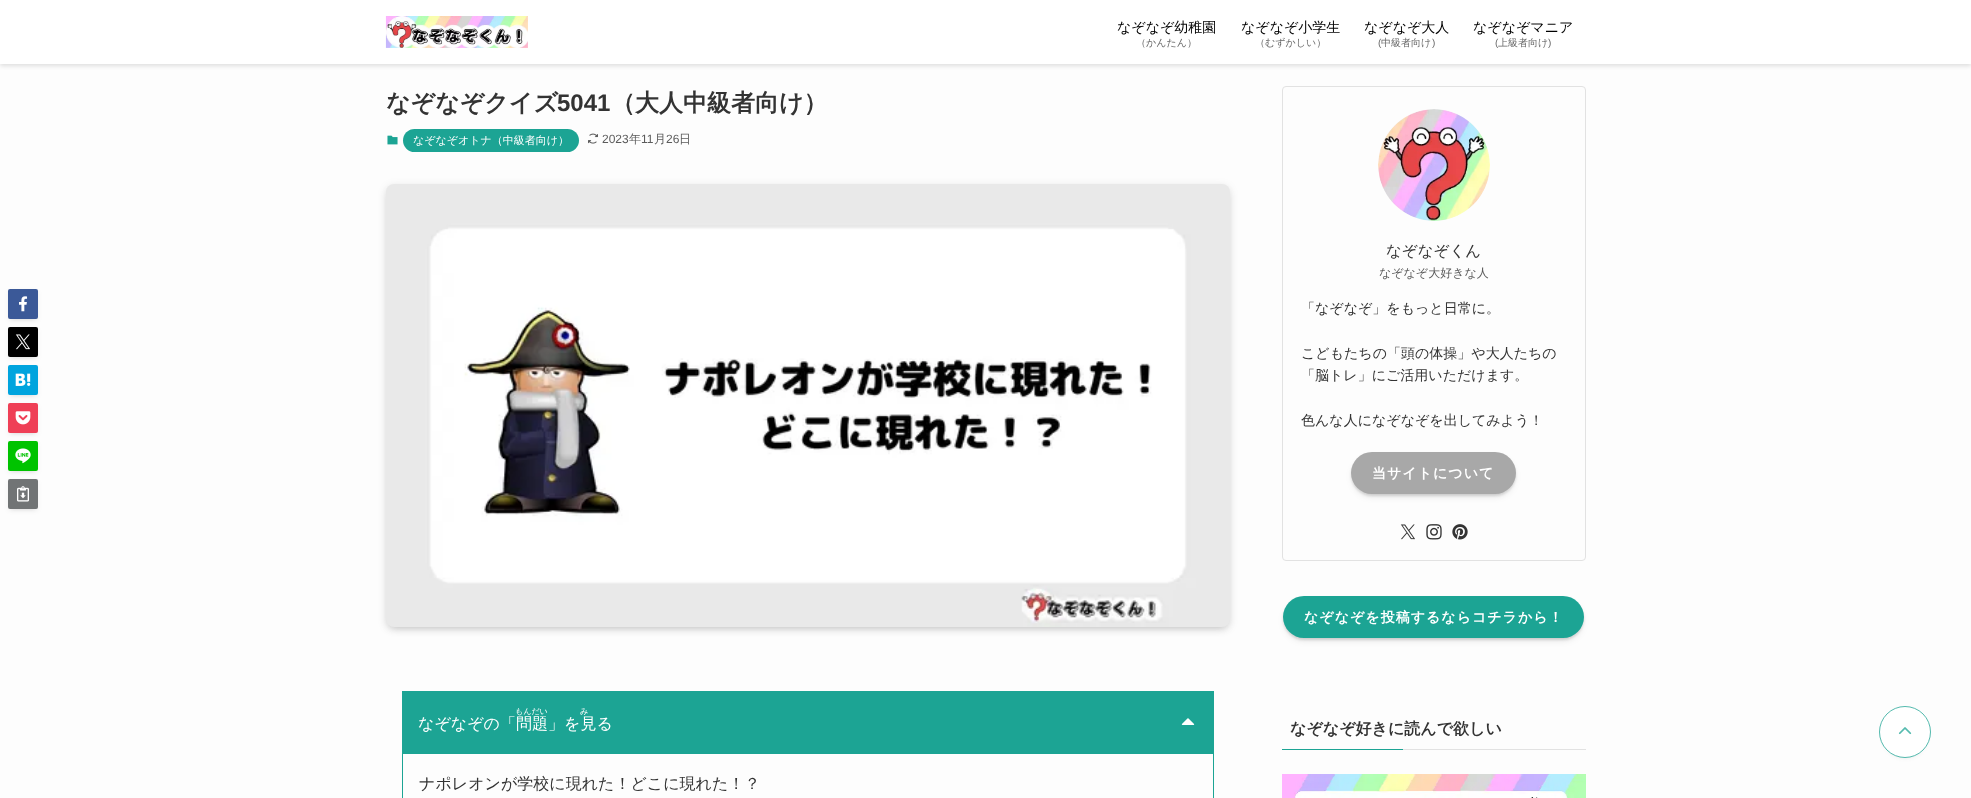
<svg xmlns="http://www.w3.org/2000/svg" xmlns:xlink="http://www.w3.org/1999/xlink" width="1971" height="798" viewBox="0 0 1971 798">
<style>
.cls-1{font:500 14px WenQuanYi Zen Hei;fill:#000000}
.cls-2{font:500 10px WenQuanYi Zen Hei;fill:#666666}
.cls-3{font:10px Liberation Sans;fill:#666666}
.cls-4{font:bold 24px WenQuanYi Zen Hei;fill:#333333}
.cls-5{font:bold 24px Liberation Sans;fill:#333333}
.cls-6{font:500 11px WenQuanYi Zen Hei;fill:#ffffff}
.cls-7{font:12px Liberation Sans;fill:#5b5b5b}
.cls-8{font:500 12px WenQuanYi Zen Hei;fill:#5b5b5b}
.cls-9{font:500 8px WenQuanYi Zen Hei;fill:#ffffff}
.cls-10{font:500 16px WenQuanYi Zen Hei;fill:#ffffff}
.cls-11{font:500 16px WenQuanYi Zen Hei;fill:#333333}
.cls-12{font:500 15.5px WenQuanYi Zen Hei;fill:#333333}
.cls-13{font:500 14px WenQuanYi Zen Hei;fill:#333333}
.cls-14{font:bold 14px WenQuanYi Zen Hei;letter-spacing:1px;fill:#ffffff}
.cls-15{font:bold 16px WenQuanYi Zen Hei;fill:#333333}
</style>
<rect width="100%" height="100%" fill="#fdfdfd"/>
<rect fill="#000000" fill-opacity="0.12" filter="blur(2px)" x="0" y="2" width="1971" height="64"/>
<rect fill="#ffffff" x="0" y="0" width="1971" height="64"/>
<image xlink:href="image0.png" x="385" y="16" width="143" height="32"/>
<image xlink:href="image1.png" x="387" y="135" width="11" height="10"/>
<rect fill="#1ca494" x="403" y="129" width="176" height="23" rx="11.5"/>
<image xlink:href="image2.png" x="588" y="133" width="10" height="11"/>
<rect fill="#000000" fill-opacity="0.1" filter="blur(2px)" x="12" y="297" width="22" height="22"/>
<rect fill="#000000" fill-opacity="0.05" filter="blur(2px)" x="8" y="291" width="30" height="30" rx="2"/>
<rect fill="#3b5998" x="8" y="289" width="30" height="30" rx="2"/>
<image xlink:href="image3.png" x="19" y="296" width="9" height="16"/>
<rect fill="#000000" fill-opacity="0.1" filter="blur(2px)" x="12" y="335" width="22" height="22"/>
<rect fill="#000000" fill-opacity="0.05" filter="blur(2px)" x="8" y="329" width="30" height="30" rx="2"/>
<rect fill="#000000" x="8" y="327" width="30" height="30" rx="2"/>
<image xlink:href="image4.png" x="15" y="334" width="15" height="16"/>
<rect fill="#000000" fill-opacity="0.1" filter="blur(2px)" x="12" y="373" width="22" height="22"/>
<rect fill="#000000" fill-opacity="0.05" filter="blur(2px)" x="8" y="367" width="30" height="30" rx="2"/>
<rect fill="#00a4de" x="8" y="365" width="30" height="30" rx="2"/>
<image xlink:href="image5.png" x="15" y="373" width="16" height="13"/>
<rect fill="#000000" fill-opacity="0.1" filter="blur(2px)" x="12" y="411" width="22" height="22"/>
<rect fill="#000000" fill-opacity="0.05" filter="blur(2px)" x="8" y="405" width="30" height="30" rx="2"/>
<rect fill="#ef3f56" x="8" y="403" width="30" height="30" rx="2"/>
<image xlink:href="image6.png" x="15" y="411" width="16" height="14"/>
<rect fill="#000000" fill-opacity="0.1" filter="blur(2px)" x="12" y="449" width="22" height="22"/>
<rect fill="#000000" fill-opacity="0.05" filter="blur(2px)" x="8" y="443" width="30" height="30" rx="2"/>
<rect fill="#00c300" x="8" y="441" width="30" height="30" rx="2"/>
<image xlink:href="image7.png" x="15" y="448" width="16" height="16"/>
<rect fill="#000000" fill-opacity="0.1" filter="blur(2px)" x="12" y="487" width="22" height="22"/>
<rect fill="#000000" fill-opacity="0.05" filter="blur(2px)" x="8" y="481" width="30" height="30" rx="2"/>
<rect fill="#717475" x="8" y="479" width="30" height="30" rx="2"/>
<image xlink:href="image8.png" x="17" y="486" width="12" height="16"/>
<rect fill="#000000" fill-opacity="0.2" filter="blur(4px)" x="390" y="192" width="836" height="435" rx="4"/>
<rect fill="#000000" fill-opacity="0.1" filter="blur(4px)" x="386" y="186" width="844" height="443" rx="8"/>
<image xlink:href="image9.png" x="386" y="184" width="844" height="443"/>
<rect fill="#1ca494" x="402" y="691" width="812" height="63"/>
<image xlink:href="image10.png" x="1181" y="718" width="14" height="7"/>
<rect fill="#1ca494" x="1213" y="754" width="1" height="44"/>
<rect fill="#1ca494" x="402" y="754" width="1" height="44"/>
<rect fill="none" stroke="#e2e2e2" x="1282.5" y="86.5" width="303" height="474" rx="3.5"/>
<image xlink:href="image11.png" x="1378" y="109" width="112" height="112"/>
<rect fill="#000000" fill-opacity="0.2" filter="blur(4px)" x="1355" y="460" width="157" height="34" rx="17"/>
<rect fill="#000000" fill-opacity="0.1" filter="blur(1px)" x="1351" y="454" width="165" height="42" rx="21"/>
<rect fill="#a8a8a8" x="1351" y="452" width="165" height="42" rx="21"/>
<image xlink:href="image12.png" x="1400" y="524" width="15" height="16"/>
<image xlink:href="image13.png" x="1426" y="524" width="16" height="16"/>
<image xlink:href="image14.png" x="1452" y="524" width="16" height="16"/>
<rect fill="#000000" fill-opacity="0.2" filter="blur(4px)" x="1287" y="604" width="293" height="34" rx="17"/>
<rect fill="#000000" fill-opacity="0.1" filter="blur(1px)" x="1283" y="598" width="301" height="42" rx="21"/>
<rect fill="#1ca494" x="1283" y="596" width="301" height="42" rx="21"/>
<rect fill="#1ca494" x="1282" y="749" width="121" height="1"/>
<rect fill="#e2e2e2" x="1403" y="749" width="183" height="1"/>
<image xlink:href="image15.png" x="1282" y="774" width="304" height="24"/>
<rect fill="#3f3f3f" fill-opacity="0.1" filter="blur(2px)" x="1883" y="714" width="44" height="44" rx="22"/>
<circle fill="#ffffff" stroke="#54baae" cx="1905" cy="732" r="25.5"/>
<image xlink:href="image16.png" x="1898" y="727" width="14" height="8"/>
<text class="cls-1" x="1117" y="32">なぞなぞ幼稚園</text>
<text class="cls-2" x="1136" y="46">（かんたん）</text>
<text class="cls-1" x="1241" y="32">なぞなぞ小学生</text>
<text class="cls-2" x="1255" y="46">（むずかしい）</text>
<text class="cls-1" x="1364" y="32">なぞなぞ大人</text>
<text class="cls-3" x="1378" y="46">(</text>
<text class="cls-2" x="1381" y="46">中級者向け</text>
<text class="cls-3" x="1432" y="46">)</text>
<text class="cls-1" x="1473" y="32">なぞなぞマニア</text>
<text class="cls-3" x="1495" y="46">(</text>
<text class="cls-2" x="1498" y="46">上級者向け</text>
<text class="cls-3" x="1548" y="46">)</text>
<text class="cls-4" x="386" y="111">なぞなぞクイズ</text>
<text class="cls-5" x="557" y="111">5041</text>
<text class="cls-4" x="611" y="111">（大人中級者向け）</text>
<text class="cls-6" x="413" y="144">なぞなぞオトナ（中級者向け）</text>
<text class="cls-7" x="602" y="143">2023</text>
<text class="cls-8" x="629" y="143">年</text>
<text class="cls-7" x="641" y="143">11</text>
<text class="cls-8" x="654" y="143">月</text>
<text class="cls-7" x="666" y="143">26</text>
<text class="cls-8" x="679" y="143">日</text>
<text class="cls-9" x="515" y="714">もんだい</text>
<text class="cls-9" x="580" y="714">み</text>
<text class="cls-10" x="418" y="729">なぞなぞの「問題</text>
<text class="cls-10" x="548" y="729">」を見る</text>
<text class="cls-11" x="419" y="789">ナポレオンが学校に現れた！どこに現れた！？</text>
<text class="cls-12" x="1386" y="256">なぞなぞくん</text>
<text class="cls-8" x="1379" y="277">なぞなぞ大好きな人</text>
<text class="cls-13" x="1301" y="313">「なぞなぞ」をもっと日常に。</text>
<text class="cls-13"><tspan x="1301" y="358">こどもたちの「頭の体操」や大人たちの</tspan><tspan x="1301" y="380">「脳トレ」にご活用いただけます。</tspan></text>
<text class="cls-13" x="1301" y="425">色んな人になぞなぞを出してみよう！</text>
<text class="cls-14" x="1372" y="478">当サイトについて</text>
<text class="cls-14" x="1304" y="622">なぞなぞを投稿するならコチラから！</text>
<text class="cls-15" x="1290" y="734">なぞなぞ好きに読んで欲しい</text>
</svg>
